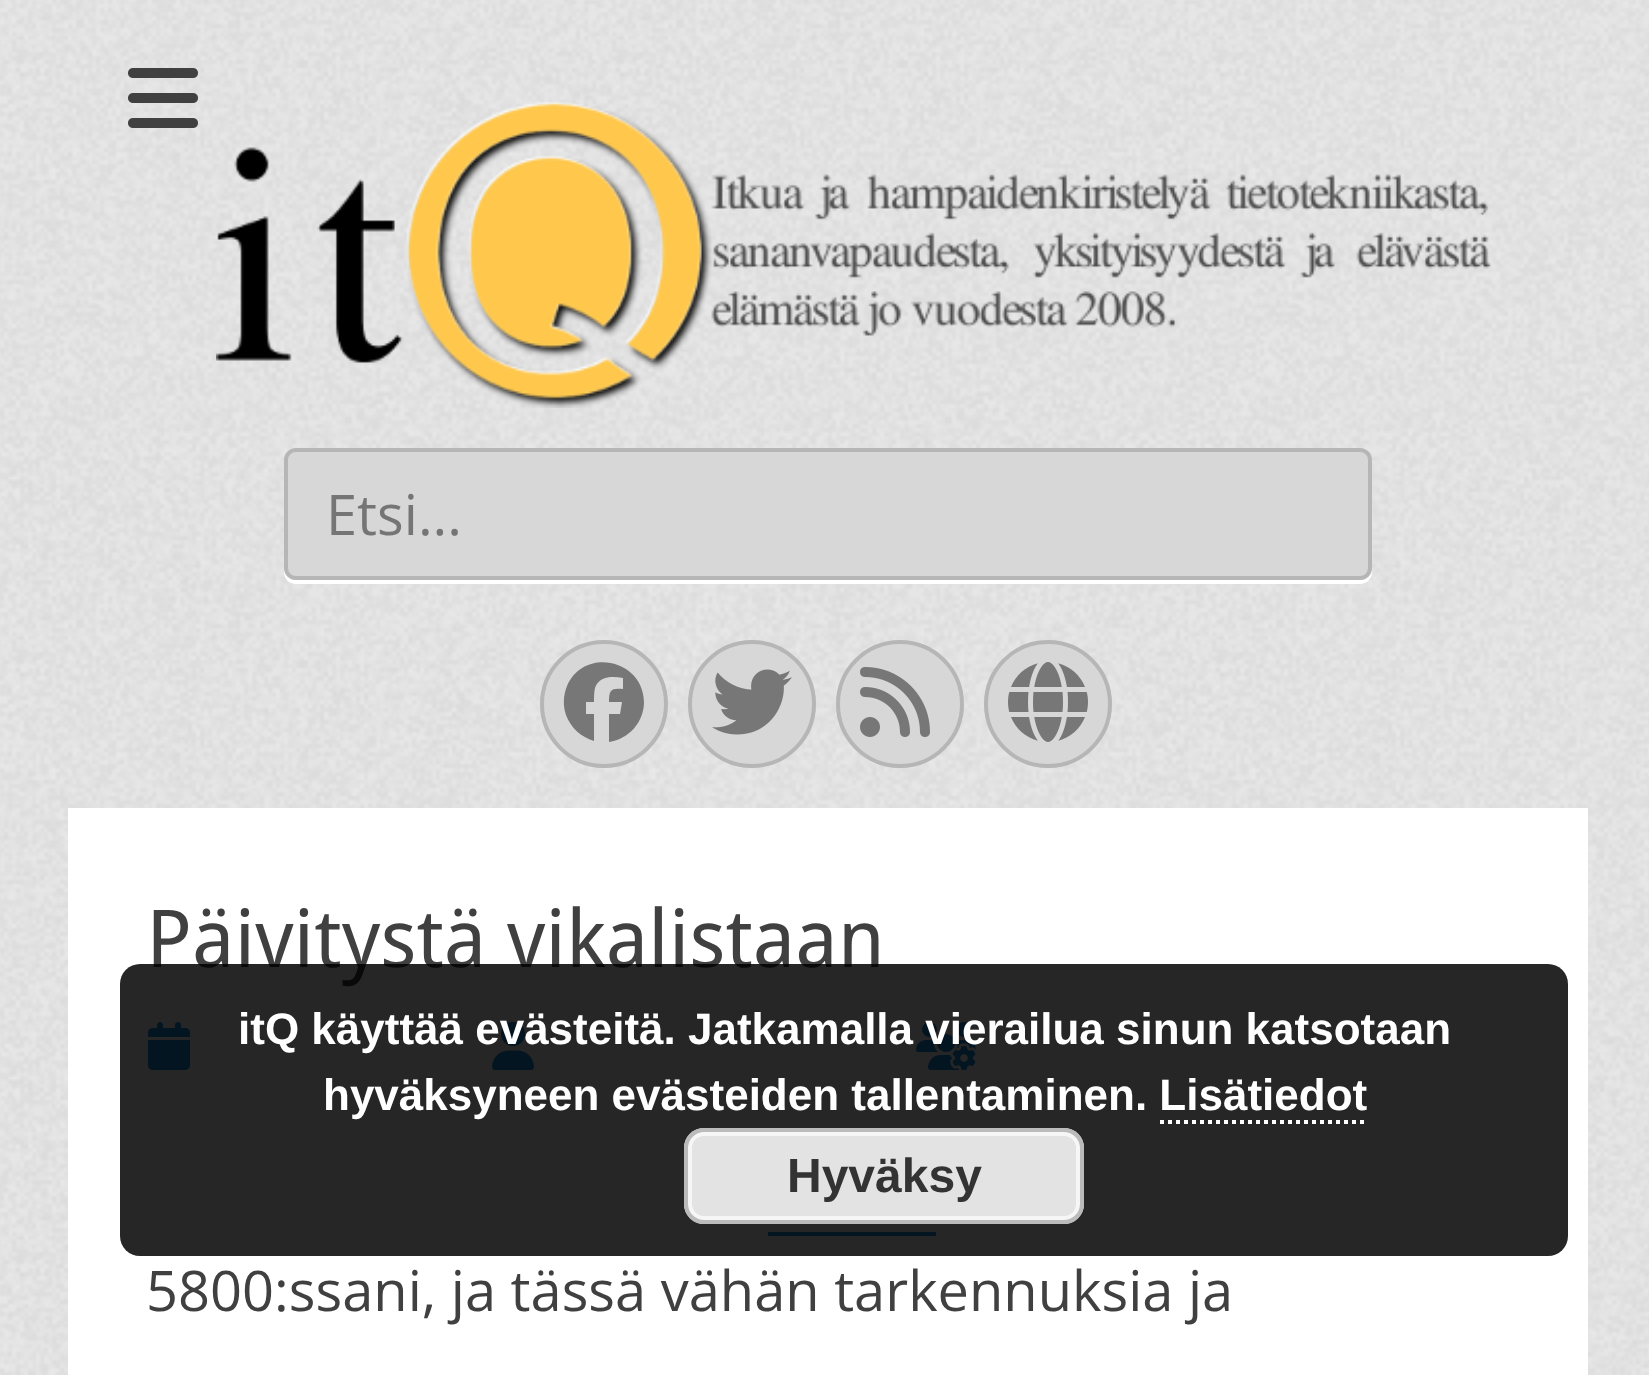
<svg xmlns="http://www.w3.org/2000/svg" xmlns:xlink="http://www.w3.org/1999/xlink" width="1649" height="1375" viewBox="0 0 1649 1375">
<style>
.cls-1{font:56px Open Sans;fill:#757575}
.cls-2{font:80px Droid Sans;fill:#404040}
.cls-3{font:56px Open Sans;fill:#404040}
.cls-4{font:bold 44px Liberation Sans;fill:#ffffff}
.cls-5{font:bold 48px Liberation Sans;fill:#333333}
</style>
<rect width="100%" height="100%" fill="#ffffff"/>
<image xlink:href="image0.png" x="0" y="0" width="1649" height="1375"/>
<image xlink:href="image1.png" x="128" y="68" width="70" height="60"/>
<image xlink:href="image2.png" x="216" y="101" width="1275" height="307"/>
<path fill="#ffffff" d="M284 568V572C284 579 289 584 296 584H1360C1367 584 1372 579 1372 572V568C1372 575 1367 580 1360 580H296C289 580 284 575 284 568Z"/>
<rect fill="#d7d7d7" stroke="#b6b6b6" stroke-width="4" x="286" y="450" width="1084" height="128" rx="10"/>
<circle fill="#d7d7d7" stroke="#b6b6b6" stroke-width="4" cx="604" cy="704" r="62"/>
<path fill="#777777" d="M644 702C643 659 584 647 567 686C563 696 563 706 566 715C571 728 581 737 594 741V714H586V702H594C594 697 594 692 595 688C599 676 612 676 623 678V689C611 688 609 690 609 702H622L620 714H609V742C629 739 644 722 644 702Z"/>
<circle fill="#d7d7d7" stroke="#b6b6b6" stroke-width="4" cx="752" cy="704" r="62"/>
<image xlink:href="image3.png" x="712" y="669" width="80" height="66"/>
<circle fill="#d7d7d7" stroke="#b6b6b6" stroke-width="4" cx="900" cy="704" r="62"/>
<image xlink:href="image4.png" x="860" y="667" width="70" height="70"/>
<circle fill="#d7d7d7" stroke="#b6b6b6" stroke-width="4" cx="1048" cy="704" r="62"/>
<image xlink:href="image5.png" x="1008" y="662" width="80" height="80"/>
<rect fill="#ffffff" x="68" y="808" width="1520" height="567"/>
<image xlink:href="image6.png" x="148" y="1022" width="42" height="48"/>
<image xlink:href="image7.png" x="492" y="1022" width="42" height="48"/>
<image xlink:href="image8.png" x="916" y="1022" width="60" height="48"/>
<rect fill="#1b8be0" x="768" y="1232" width="168" height="4"/>
<text class="cls-1" x="326" y="535">Etsi...</text>
<text class="cls-2" x="146" y="967">Päivitystä vikalistaan</text>
<text class="cls-3" x="146" y="1311">5800:ssani, ja tässä vähän tarkennuksia ja</text>
<rect fill="#000000" fill-opacity="0.85" x="120" y="964" width="1448" height="292" rx="20"/>
<text class="cls-4" x="238" y="1044">itQ käyttää evästeitä. Jatkamalla vierailua sinun katsotaan</text>
<text class="cls-4" x="323" y="1110">hyväksyneen evästeiden tallentaminen. Lisätiedot</text>
<path fill="none" stroke="#ffffff" stroke-width="4" stroke-dasharray="4 4" d="M1160 1122H1368"/>
<rect fill="#e3e3e3" x="684" y="1128" width="400" height="96" rx="20"/>
<rect fill="none" stroke="#f6f6f6" stroke-width="4" x="690" y="1134" width="388" height="84" rx="14"/>
<rect fill="none" stroke="#bbbbbb" stroke-width="4" x="686" y="1130" width="396" height="92" rx="18"/>
<text class="cls-5" x="787" y="1192">Hyväksy</text>
</svg>
